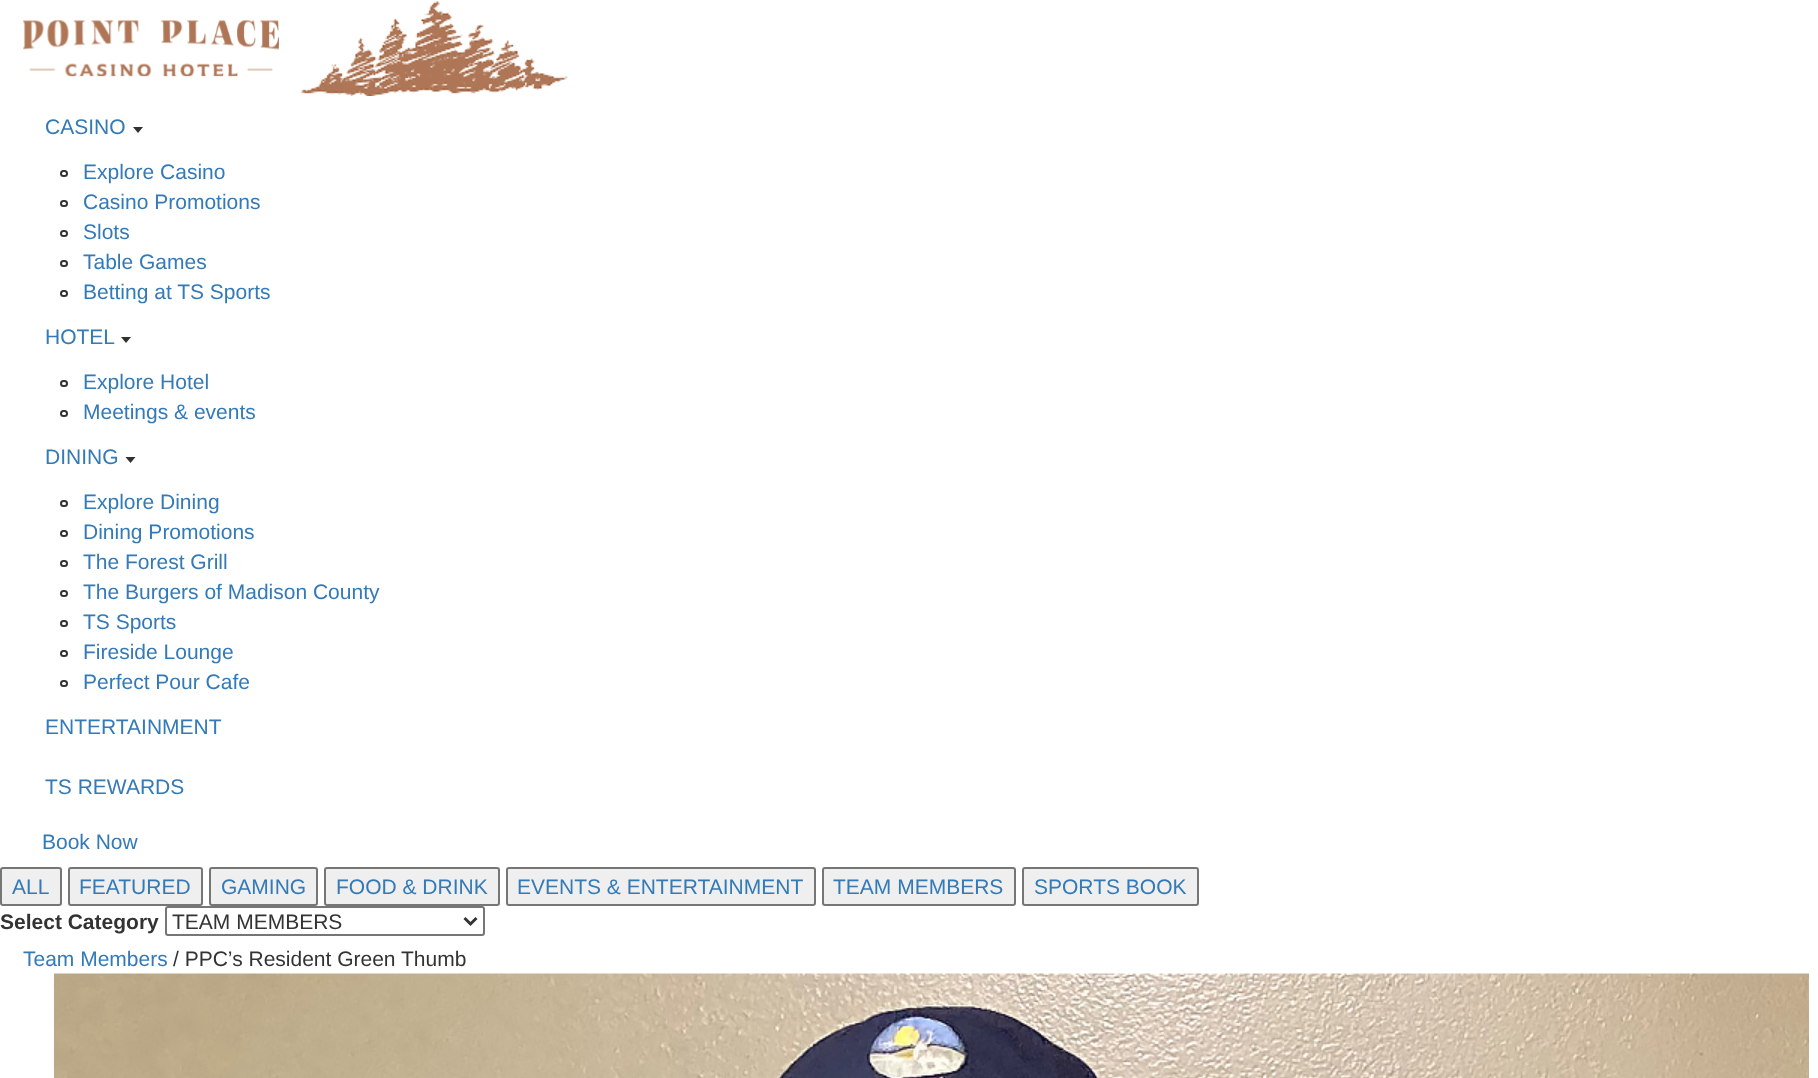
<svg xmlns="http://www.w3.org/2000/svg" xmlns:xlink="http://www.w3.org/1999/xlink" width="1818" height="1078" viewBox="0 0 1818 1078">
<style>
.cls-1{font:21px Liberation Sans;fill:#337ab7}
.cls-2{font:bold 21px Liberation Sans;fill:#333333}
.cls-3{font:21px Liberation Sans;fill:#333333}
</style>
<rect width="100%" height="100%" fill="#ffffff"/>
<image xlink:href="image0.png" x="23" y="20" width="256" height="57"/>
<image xlink:href="image1.png" x="301" y="1" width="268" height="95"/>
<path fill="#33312e" d="M138 133L133 127H143Z"/>
<rect fill="none" stroke="#333333" stroke-width="2" x="61" y="171" width="6" height="5" rx="2.5"/>
<rect fill="none" stroke="#333333" stroke-width="2" x="61" y="201" width="6" height="5" rx="2.5"/>
<rect fill="none" stroke="#333333" stroke-width="2" x="61" y="231" width="6" height="5" rx="2.5"/>
<rect fill="none" stroke="#333333" stroke-width="2" x="61" y="261" width="6" height="5" rx="2.5"/>
<rect fill="none" stroke="#333333" stroke-width="2" x="61" y="291" width="6" height="5" rx="2.5"/>
<path fill="#33312e" d="M126 343L121 337H131Z"/>
<rect fill="none" stroke="#333333" stroke-width="2" x="61" y="381" width="6" height="5" rx="2.5"/>
<rect fill="none" stroke="#333333" stroke-width="2" x="61" y="411" width="6" height="5" rx="2.5"/>
<path fill="#33312e" d="M130.5 463L125.5 457H135.5Z"/>
<rect fill="none" stroke="#333333" stroke-width="2" x="61" y="501" width="6" height="5" rx="2.5"/>
<rect fill="none" stroke="#333333" stroke-width="2" x="61" y="531" width="6" height="5" rx="2.5"/>
<rect fill="none" stroke="#333333" stroke-width="2" x="61" y="561" width="6" height="5" rx="2.5"/>
<rect fill="none" stroke="#333333" stroke-width="2" x="61" y="591" width="6" height="5" rx="2.5"/>
<rect fill="none" stroke="#333333" stroke-width="2" x="61" y="621" width="6" height="5" rx="2.5"/>
<rect fill="none" stroke="#333333" stroke-width="2" x="61" y="651" width="6" height="5" rx="2.5"/>
<rect fill="none" stroke="#333333" stroke-width="2" x="61" y="681" width="6" height="5" rx="2.5"/>
<rect fill="#efefef" stroke="#767676" stroke-width="2" x="1" y="868" width="60" height="37" rx="2"/>
<rect fill="#efefef" stroke="#767676" stroke-width="2" x="69" y="868" width="133" height="37" rx="2"/>
<rect fill="#efefef" stroke="#767676" stroke-width="2" x="210" y="868" width="107" height="37" rx="2"/>
<rect fill="#efefef" stroke="#767676" stroke-width="2" x="325" y="868" width="174" height="37" rx="2"/>
<rect fill="#efefef" stroke="#767676" stroke-width="2" x="507" y="868" width="308" height="37" rx="2"/>
<rect fill="#efefef" stroke="#767676" stroke-width="2" x="823" y="868" width="192" height="37" rx="2"/>
<rect fill="#efefef" stroke="#767676" stroke-width="2" x="1023" y="868" width="175" height="37" rx="2"/>
<rect fill="none" stroke="#767676" stroke-width="2" x="166" y="907" width="318" height="28" rx="2"/>
<path fill="none" stroke="#333333" stroke-width="3" d="M464.5 918L470.5 924L476.5 918"/>
<image xlink:href="image2.png" x="54" y="973" width="1755" height="105"/>
<text class="cls-1" x="45" y="134">CASINO</text>
<text class="cls-1"><tspan x="83" y="179">Explore Casino</tspan><tspan x="83" y="209">Casino Promotions</tspan><tspan x="83" y="239">Slots</tspan><tspan x="83" y="269">Table Games</tspan><tspan x="83" y="299">Betting at TS Sports</tspan></text>
<text class="cls-1" x="45" y="344">HOTEL</text>
<text class="cls-1"><tspan x="83" y="389">Explore Hotel</tspan><tspan x="83" y="419">Meetings &amp; events</tspan></text>
<text class="cls-1" x="45" y="464">DINING</text>
<text class="cls-1"><tspan x="83" y="509">Explore Dining</tspan><tspan x="83" y="539">Dining Promotions</tspan><tspan x="83" y="569">The Forest Grill</tspan><tspan x="83" y="599">The Burgers of Madison County</tspan><tspan x="83" y="629">TS Sports</tspan><tspan x="83" y="659">Fireside Lounge</tspan><tspan x="83" y="689">Perfect Pour Cafe</tspan></text>
<text class="cls-1" x="45" y="734">ENTERTAINMENT</text>
<text class="cls-1" x="45" y="794">TS REWARDS</text>
<text class="cls-1" x="42" y="849">Book Now</text>
<text class="cls-1" x="12" y="894">ALL</text>
<text class="cls-1" x="79" y="894">FEATURED</text>
<text class="cls-1" x="221" y="894">GAMING</text>
<text class="cls-1" x="336" y="894">FOOD &amp; DRINK</text>
<text class="cls-1" x="517" y="894">EVENTS &amp; ENTERTAINMENT</text>
<text class="cls-1" x="833" y="894">TEAM MEMBERS</text>
<text class="cls-1" x="1034" y="894">SPORTS BOOK</text>
<text class="cls-2" x="0" y="929">Select Category</text>
<text class="cls-3" x="172" y="929">TEAM MEMBERS</text>
<text class="cls-1" x="23" y="966">Team Members</text>
<text class="cls-3" x="173" y="966">/ PPC’s Resident Green Thumb</text>
</svg>
